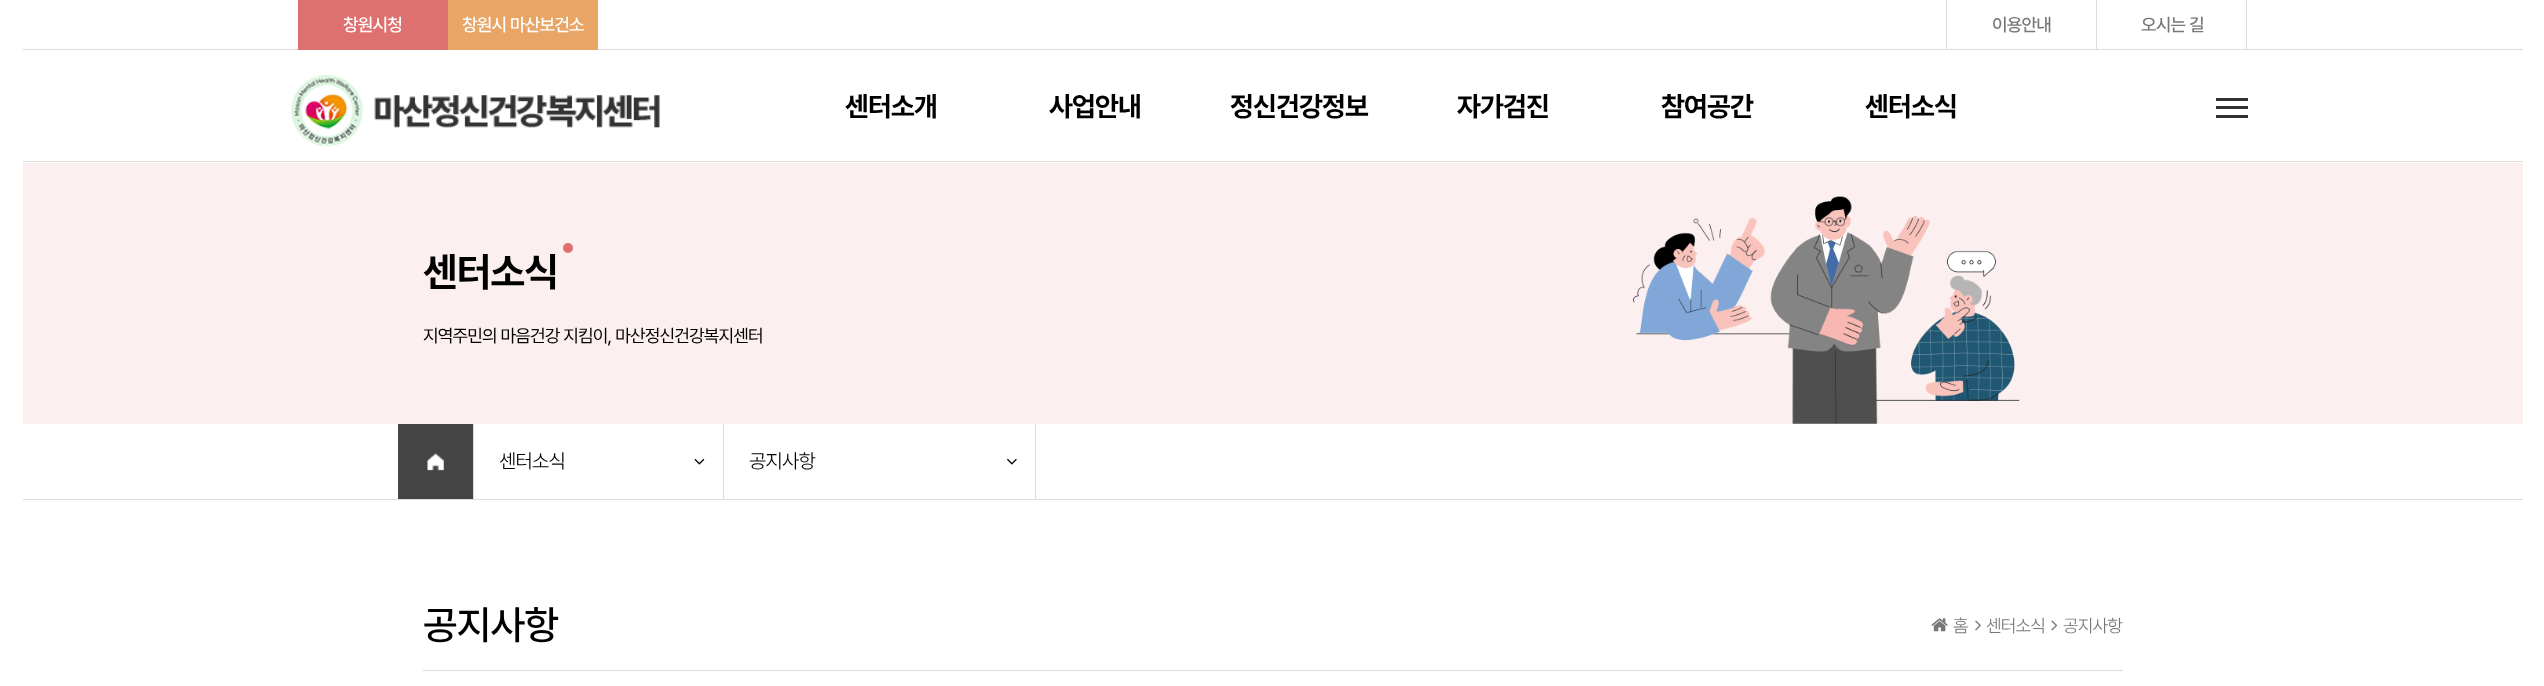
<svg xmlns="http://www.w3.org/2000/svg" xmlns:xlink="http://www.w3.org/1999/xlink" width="2544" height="686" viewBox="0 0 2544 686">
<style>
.cls-1{font:500 18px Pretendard;letter-spacing:-0.8px;fill:#ffffff}
.cls-2{font:500 18px Pretendard;letter-spacing:-0.8px;fill:#777777}
.cls-3{font:bold 27.5px Pretendard;letter-spacing:-0.8px;fill:#000000}
.cls-4{font:bold 40px Pretendard;letter-spacing:-0.8px;fill:#000000}
.cls-5{font:18px Pretendard;letter-spacing:-0.8px;fill:#000000}
.cls-6{font:300 20px Pretendard;letter-spacing:-0.8px;fill:#000000}
.cls-7{font:500 40px Pretendard;letter-spacing:-0.8px;fill:#000000}
.cls-8{font:300 18px Pretendard;letter-spacing:-0.8px;fill:#777777}
</style>
<rect width="100%" height="100%" fill="#ffffff"/>
<rect fill="#dddddd" x="23" y="161" width="2500" height="1"/>
<rect fill="#dcdcdc" x="23" y="49" width="2500" height="1"/>
<rect fill="#de716f" x="298" y="0" width="150" height="50"/>
<rect fill="#e8a566" x="448" y="0" width="150" height="50"/>
<rect fill="#dcdcdc" x="2246" y="0" width="1" height="50"/>
<rect fill="#dcdcdc" x="1946" y="0" width="1" height="50"/>
<rect fill="#dcdcdc" x="2096" y="0" width="1" height="50"/>
<image xlink:href="image0.png" x="291" y="75" width="369" height="72"/>
<rect fill="#333333" x="2216" y="98" width="32" height="3"/>
<rect fill="#333333" x="2216" y="106" width="32" height="3"/>
<rect fill="#333333" x="2216" y="115" width="32" height="3"/>
<rect fill="#fbefef" x="23" y="163" width="2500" height="261"/>
<circle fill="#de716f" cx="568" cy="248" r="5"/>
<image xlink:href="image1.png" x="1633" y="196" width="387" height="228"/>
<rect fill="#dcdcdc" x="23" y="499" width="2500" height="1"/>
<rect fill="#444444" x="398" y="424" width="75" height="75"/>
<rect fill="#dcdcdc" x="473" y="424" width="1" height="75"/>
<image xlink:href="image2.png" x="427" y="453" width="17" height="18"/>
<rect fill="#dcdcdc" x="723" y="424" width="1" height="75"/>
<image xlink:href="image3.png" x="694" y="458" width="11" height="7"/>
<rect fill="#dcdcdc" x="1035" y="424" width="1" height="75"/>
<image xlink:href="image4.png" x="1007" y="458" width="10" height="7"/>
<rect fill="#dcdcdc" x="423" y="670" width="1700" height="1"/>
<image xlink:href="image5.png" x="1931" y="618" width="17" height="14"/>
<image xlink:href="image6.png" x="1975" y="620" width="6" height="11"/>
<image xlink:href="image7.png" x="2051" y="620" width="7" height="11"/>
<text class="cls-1" x="343" y="31">창원시청</text>
<text class="cls-1" x="462" y="31">창원시 마산보건소</text>
<text class="cls-2" x="1992" y="31">이용안내</text>
<text class="cls-2" x="2141" y="31">오시는 길</text>
<text class="cls-3" x="845" y="116">센터소개</text>
<text class="cls-3" x="1049" y="116">사업안내</text>
<text class="cls-3" x="1230" y="116">정신건강정보</text>
<text class="cls-3" x="1457" y="116">자가검진</text>
<text class="cls-3" x="1661" y="116">참여공간</text>
<text class="cls-3" x="1865" y="116">센터소식</text>
<text class="cls-4" x="423" y="286">센터소식</text>
<text class="cls-5" x="423" y="342">지역주민의 마음건강 지킴이, 마산정신건강복지센터</text>
<text class="cls-6" x="499" y="468">센터소식</text>
<text class="cls-6" x="749" y="468">공지사항</text>
<text class="cls-7" x="423" y="639">공지사항</text>
<text class="cls-8" x="1953" y="632">홈</text>
<text class="cls-8" x="1986" y="632">센터소식</text>
<text class="cls-8" x="2063" y="632">공지사항</text>
</svg>
